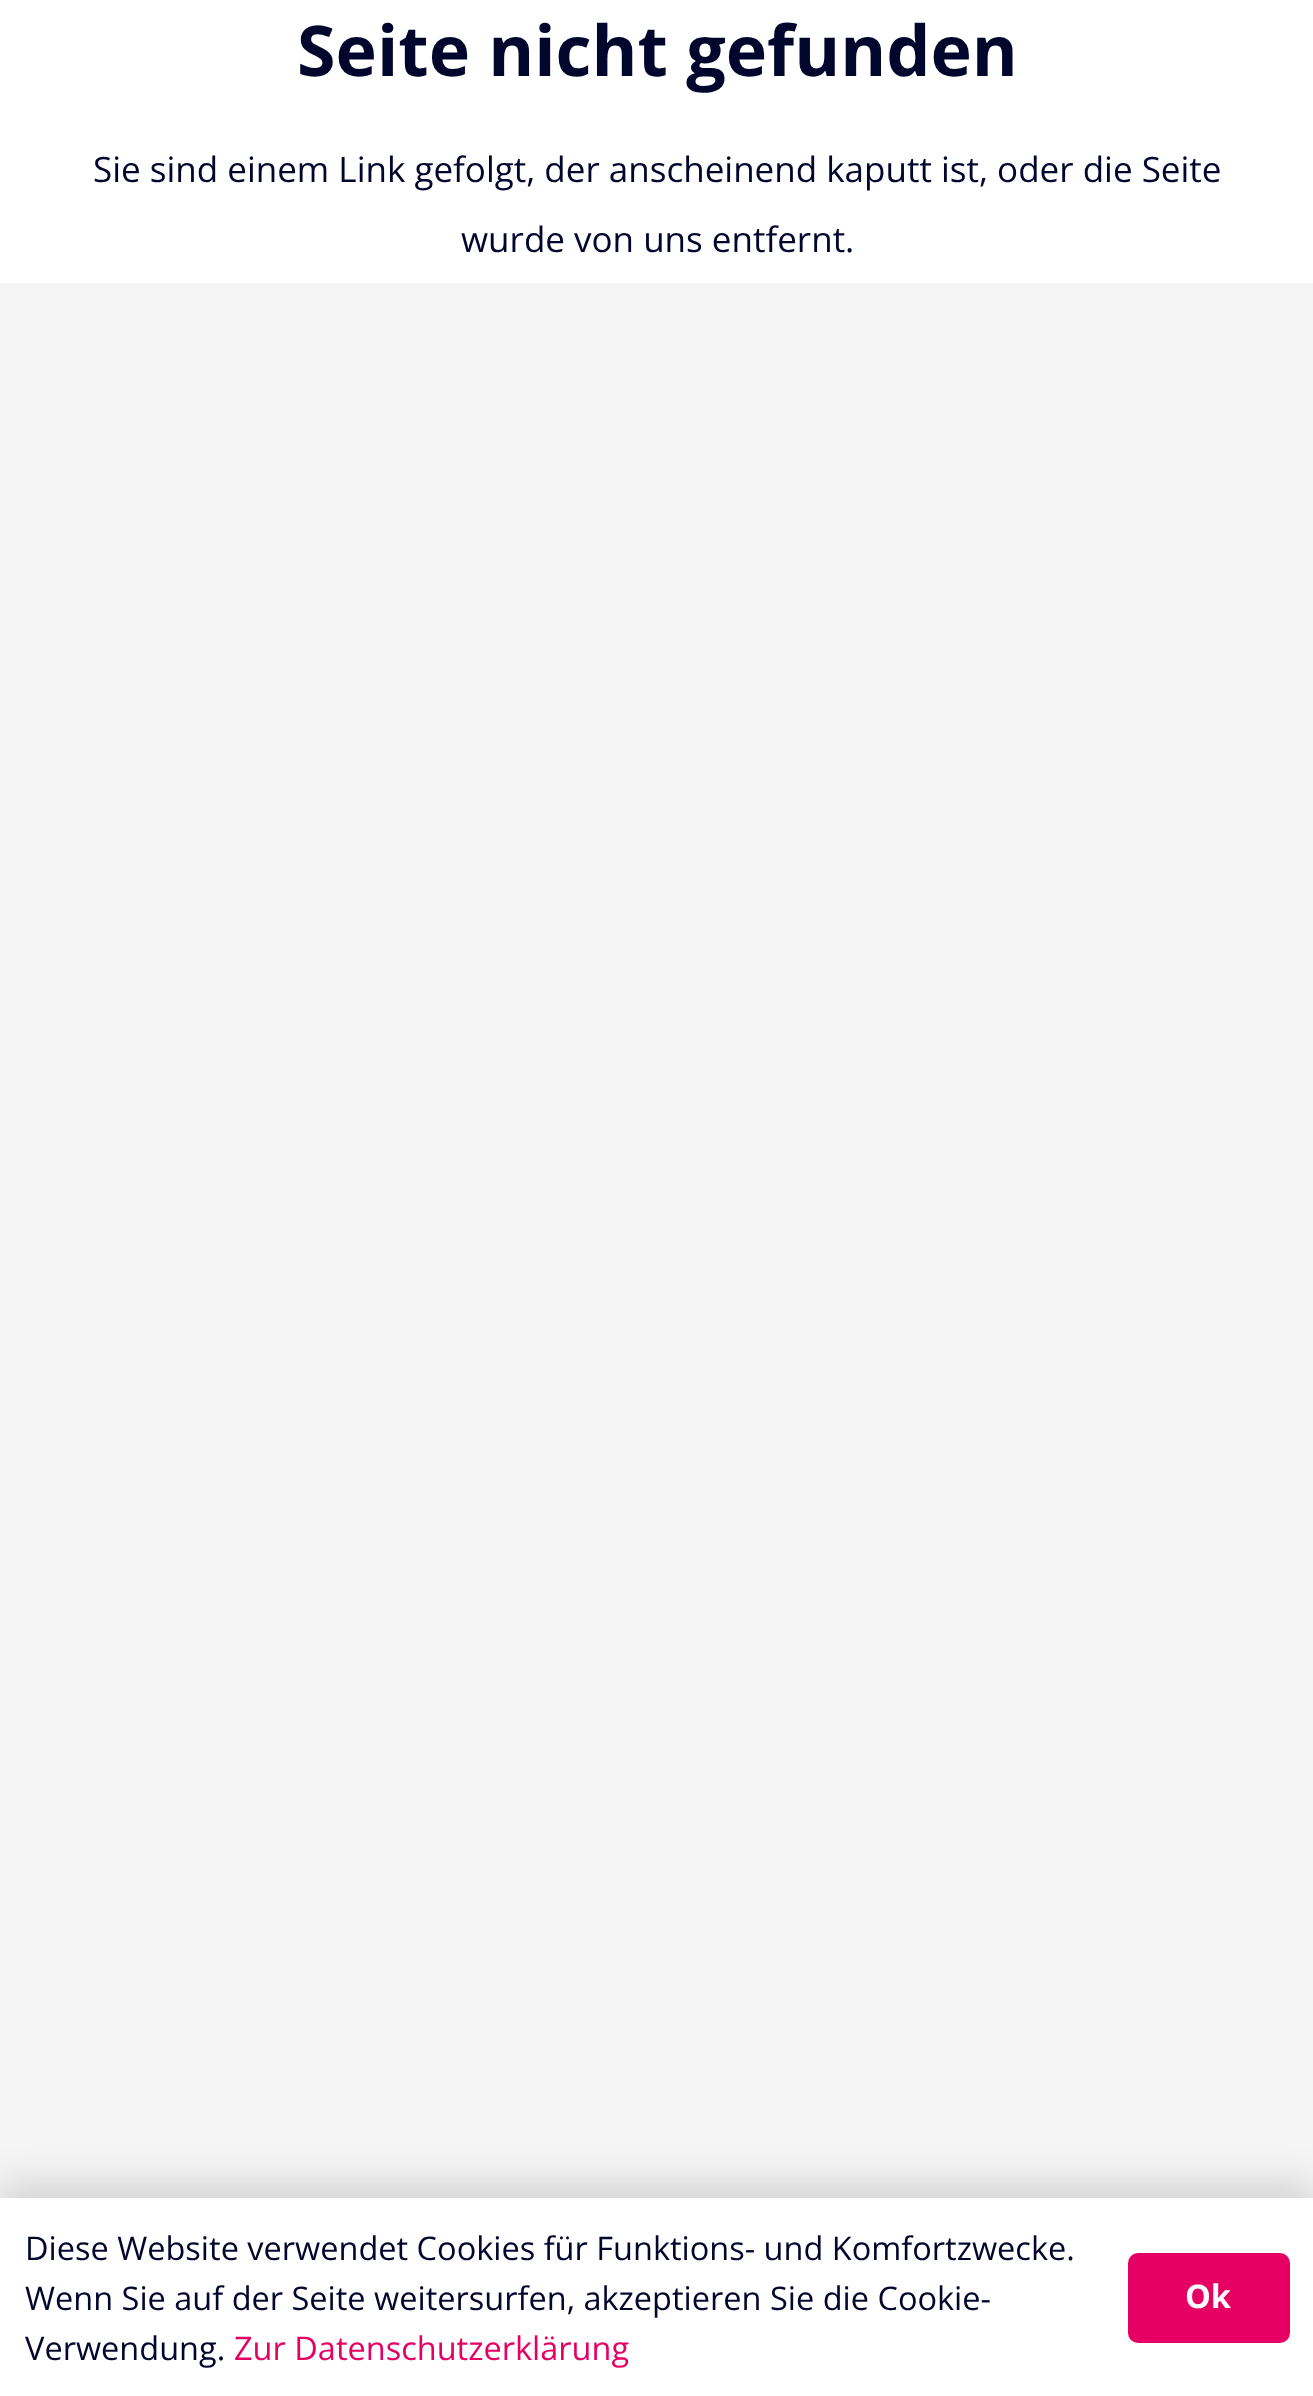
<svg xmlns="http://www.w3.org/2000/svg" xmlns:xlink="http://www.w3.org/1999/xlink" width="1313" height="2396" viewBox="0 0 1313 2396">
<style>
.cls-1{font:bold 70px Open Sans;fill:#00062c}
.cls-2{font:35px Open Sans;fill:#00062c}
.cls-3{font:32.5px Open Sans;fill:#00062c}
.cls-4{font:32.5px Open Sans;fill:#e60064}
.cls-5{font:bold 32.5px Open Sans;fill:#ffffff}
</style>
<rect width="100%" height="100%" fill="#f5f5f5"/>
<rect fill="#ffffff" x="0" y="0" width="1313" height="283"/>
<rect fill="#000000" fill-opacity="0.15" filter="blur(19px)" x="0" y="2185" width="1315" height="200"/>
<rect fill="#ffffff" x="0" y="2198" width="1313" height="198"/>
<rect fill="#e60064" x="1128" y="2253" width="162" height="90" rx="10"/>
<text class="cls-1" x="297" y="76">Seite nicht gefunden</text>
<text class="cls-2" x="93" y="182">Sie sind einem Link gefolgt, der anscheinend kaputt ist, oder die Seite</text>
<text class="cls-2" x="461" y="252">wurde von uns entfernt.</text>
<text class="cls-3"><tspan x="25" y="2260">Diese Website verwendet Cookies für Funktions- und Komfortzwecke.</tspan><tspan x="25" y="2310">Wenn Sie auf der Seite weitersurfen, akzeptieren Sie die Cookie-</tspan><tspan x="25" y="2360">Verwendung.</tspan></text>
<text class="cls-4" x="234" y="2360">Zur Datenschutzerklärung</text>
<text class="cls-5" x="1185" y="2308">Ok</text>
</svg>
